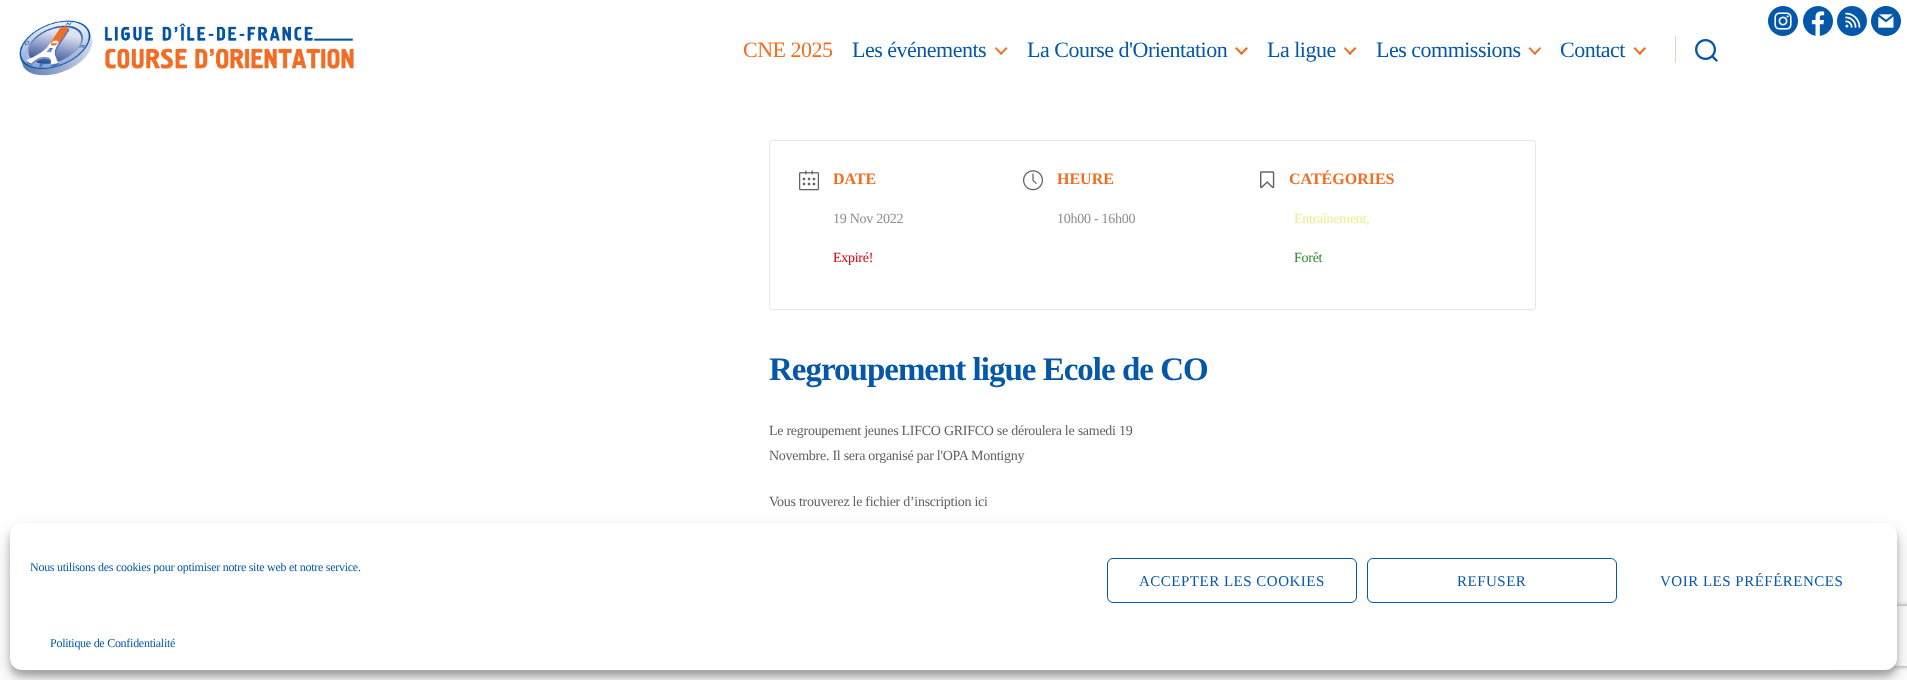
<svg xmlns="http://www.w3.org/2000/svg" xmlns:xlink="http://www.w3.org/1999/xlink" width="1907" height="680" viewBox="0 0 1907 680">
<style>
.cls-1{font:22px Liberation Serif;letter-spacing:-0.5px;fill:#f26d20}
.cls-2{font:22px Liberation Serif;letter-spacing:-0.5px;fill:#0558a9}
.cls-3{font:bold 16px Liberation Serif;fill:#f26d20}
.cls-4{font:14px Liberation Serif;letter-spacing:-0.27px;fill:#8d8d8d}
.cls-5{font:14px Liberation Serif;letter-spacing:-0.27px;fill:#d8000c}
.cls-6{font:14px Liberation Serif;letter-spacing:-0.27px;fill:#eded8e}
.cls-7{font:14px Liberation Serif;letter-spacing:-0.27px;fill:#2b8c2d}
.cls-8{font:bold 33px Liberation Serif;letter-spacing:-1px;fill:#0558a9}
.cls-9{font:14px Liberation Serif;letter-spacing:-0.27px;fill:#616161}
.cls-10{font:12px Liberation Serif;letter-spacing:-0.27px;fill:#0558a9}
.cls-11{font:15px Liberation Serif;letter-spacing:0.5px;fill:#0558a9}
</style>
<defs>
<clipPath id="clip1"><path d="M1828 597H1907V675H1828ZM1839 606H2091C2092 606 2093 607 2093 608V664C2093 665 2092 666 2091 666H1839C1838 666 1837 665 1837 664V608C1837 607 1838 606 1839 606Z" clip-rule="evenodd"/></clipPath>
</defs>
<rect width="100%" height="100%" fill="#ffffff"/>
<image xlink:href="image0.png" x="1768" y="6" width="30" height="30"/>
<image xlink:href="image1.png" x="1803" y="6" width="30" height="30"/>
<image xlink:href="image2.png" x="1837" y="6" width="30" height="30"/>
<image xlink:href="image3.png" x="1871" y="6" width="30" height="30"/>
<image xlink:href="image4.png" x="19" y="20" width="335" height="56"/>
<path fill="#f26d20" d="M995 48.5L996 47L1002.5 53.5L1001 55Z"/>
<path fill="#f26d20" d="M1000 53.5L1006 47L1007.5 48.5L1001 55Z"/>
<path fill="#f26d20" d="M1235 48.5L1236.5 47L1243 53.5L1241.5 55Z"/>
<path fill="#f26d20" d="M1240 53.5L1246.5 47L1248 48.5L1241.5 55Z"/>
<path fill="#f26d20" d="M1344 48.5L1345 47L1351.5 53.5L1350 55Z"/>
<path fill="#f26d20" d="M1348.5 53.5L1355 47L1356.5 48.5L1350 55Z"/>
<path fill="#f26d20" d="M1528.5 48.5L1530 47L1536 53.5L1535 55Z"/>
<path fill="#f26d20" d="M1533.5 53.5L1540 47L1541 48.5L1535 55Z"/>
<path fill="#f26d20" d="M1633.5 48.5L1635 47L1641 53.5L1640 55Z"/>
<path fill="#f26d20" d="M1638.5 53.5L1644.5 47L1646 48.5L1640 55Z"/>
<rect fill="#dcd7ca" x="1675" y="36" width="1" height="27"/>
<image xlink:href="image5.png" x="1695" y="39" width="23" height="23"/>
<rect fill="none" stroke="#e6e6e6" x="769.5" y="140.5" width="766" height="169" rx="2.5"/>
<image xlink:href="image6.png" x="799" y="170" width="20" height="21"/>
<image xlink:href="image7.png" x="1023" y="170" width="20" height="21"/>
<image xlink:href="image8.png" x="1260" y="171" width="15" height="18"/>
<rect fill="#000000" fill-opacity="0.23" filter="blur(3px)" x="10" y="529" width="1887" height="147" rx="12"/>
<rect fill="#000000" fill-opacity="0.19" filter="blur(10px)" x="10" y="533" width="1887" height="147" rx="12"/>
<g clip-path="url(#clip1)">
<rect fill="#808080" filter="blur(2.5px)" x="1837" y="606" width="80" height="60" rx="2"/>
</g>
<rect fill="#ffffff" x="10" y="523" width="1887" height="147" rx="12"/>
<rect fill="none" stroke="#0558a9" x="1107.5" y="558.5" width="249" height="44" rx="5.5"/>
<rect fill="none" stroke="#0558a9" x="1367.5" y="558.5" width="249" height="44" rx="5.5"/>
<text class="cls-1" x="743" y="57">CNE 2025</text>
<text class="cls-2" x="852" y="57">Les événements</text>
<text class="cls-2" x="1027" y="57">La Course d'Orientation</text>
<text class="cls-2" x="1267" y="57">La ligue</text>
<text class="cls-2" x="1376" y="57">Les commissions</text>
<text class="cls-2" x="1560" y="57">Contact</text>
<text class="cls-3" x="833" y="184">DATE</text>
<text class="cls-4" x="833" y="223">19 Nov 2022</text>
<text class="cls-5" x="833" y="262">Expiré!</text>
<text class="cls-3" x="1057" y="184">HEURE</text>
<text class="cls-4" x="1057" y="223">10h00 - 16h00</text>
<text class="cls-3" x="1289" y="184">CATÉGORIES</text>
<text class="cls-6" x="1294" y="223">Entraînement,</text>
<text class="cls-7" x="1294" y="262">Forêt</text>
<text class="cls-8" x="769" y="380">Regroupement ligue Ecole de CO</text>
<text class="cls-9"><tspan x="769" y="435">Le regroupement jeunes LIFCO GRIFCO se déroulera le samedi 19</tspan><tspan x="769" y="460">Novembre. Il sera organisé par l'OPA Montigny</tspan></text>
<text class="cls-9" x="769" y="506">Vous trouverez le fichier d’inscription ici</text>
<text class="cls-10" x="30" y="571">Nous utilisons des cookies pour optimiser notre site web et notre service.</text>
<text class="cls-11" x="1139" y="586">ACCEPTER LES COOKIES</text>
<text class="cls-11" x="1457" y="586">REFUSER</text>
<text class="cls-11" x="1660" y="586">VOIR LES PRÉFÉRENCES</text>
<text class="cls-10" x="50" y="647">Politique de Confidentialité</text>
</svg>
